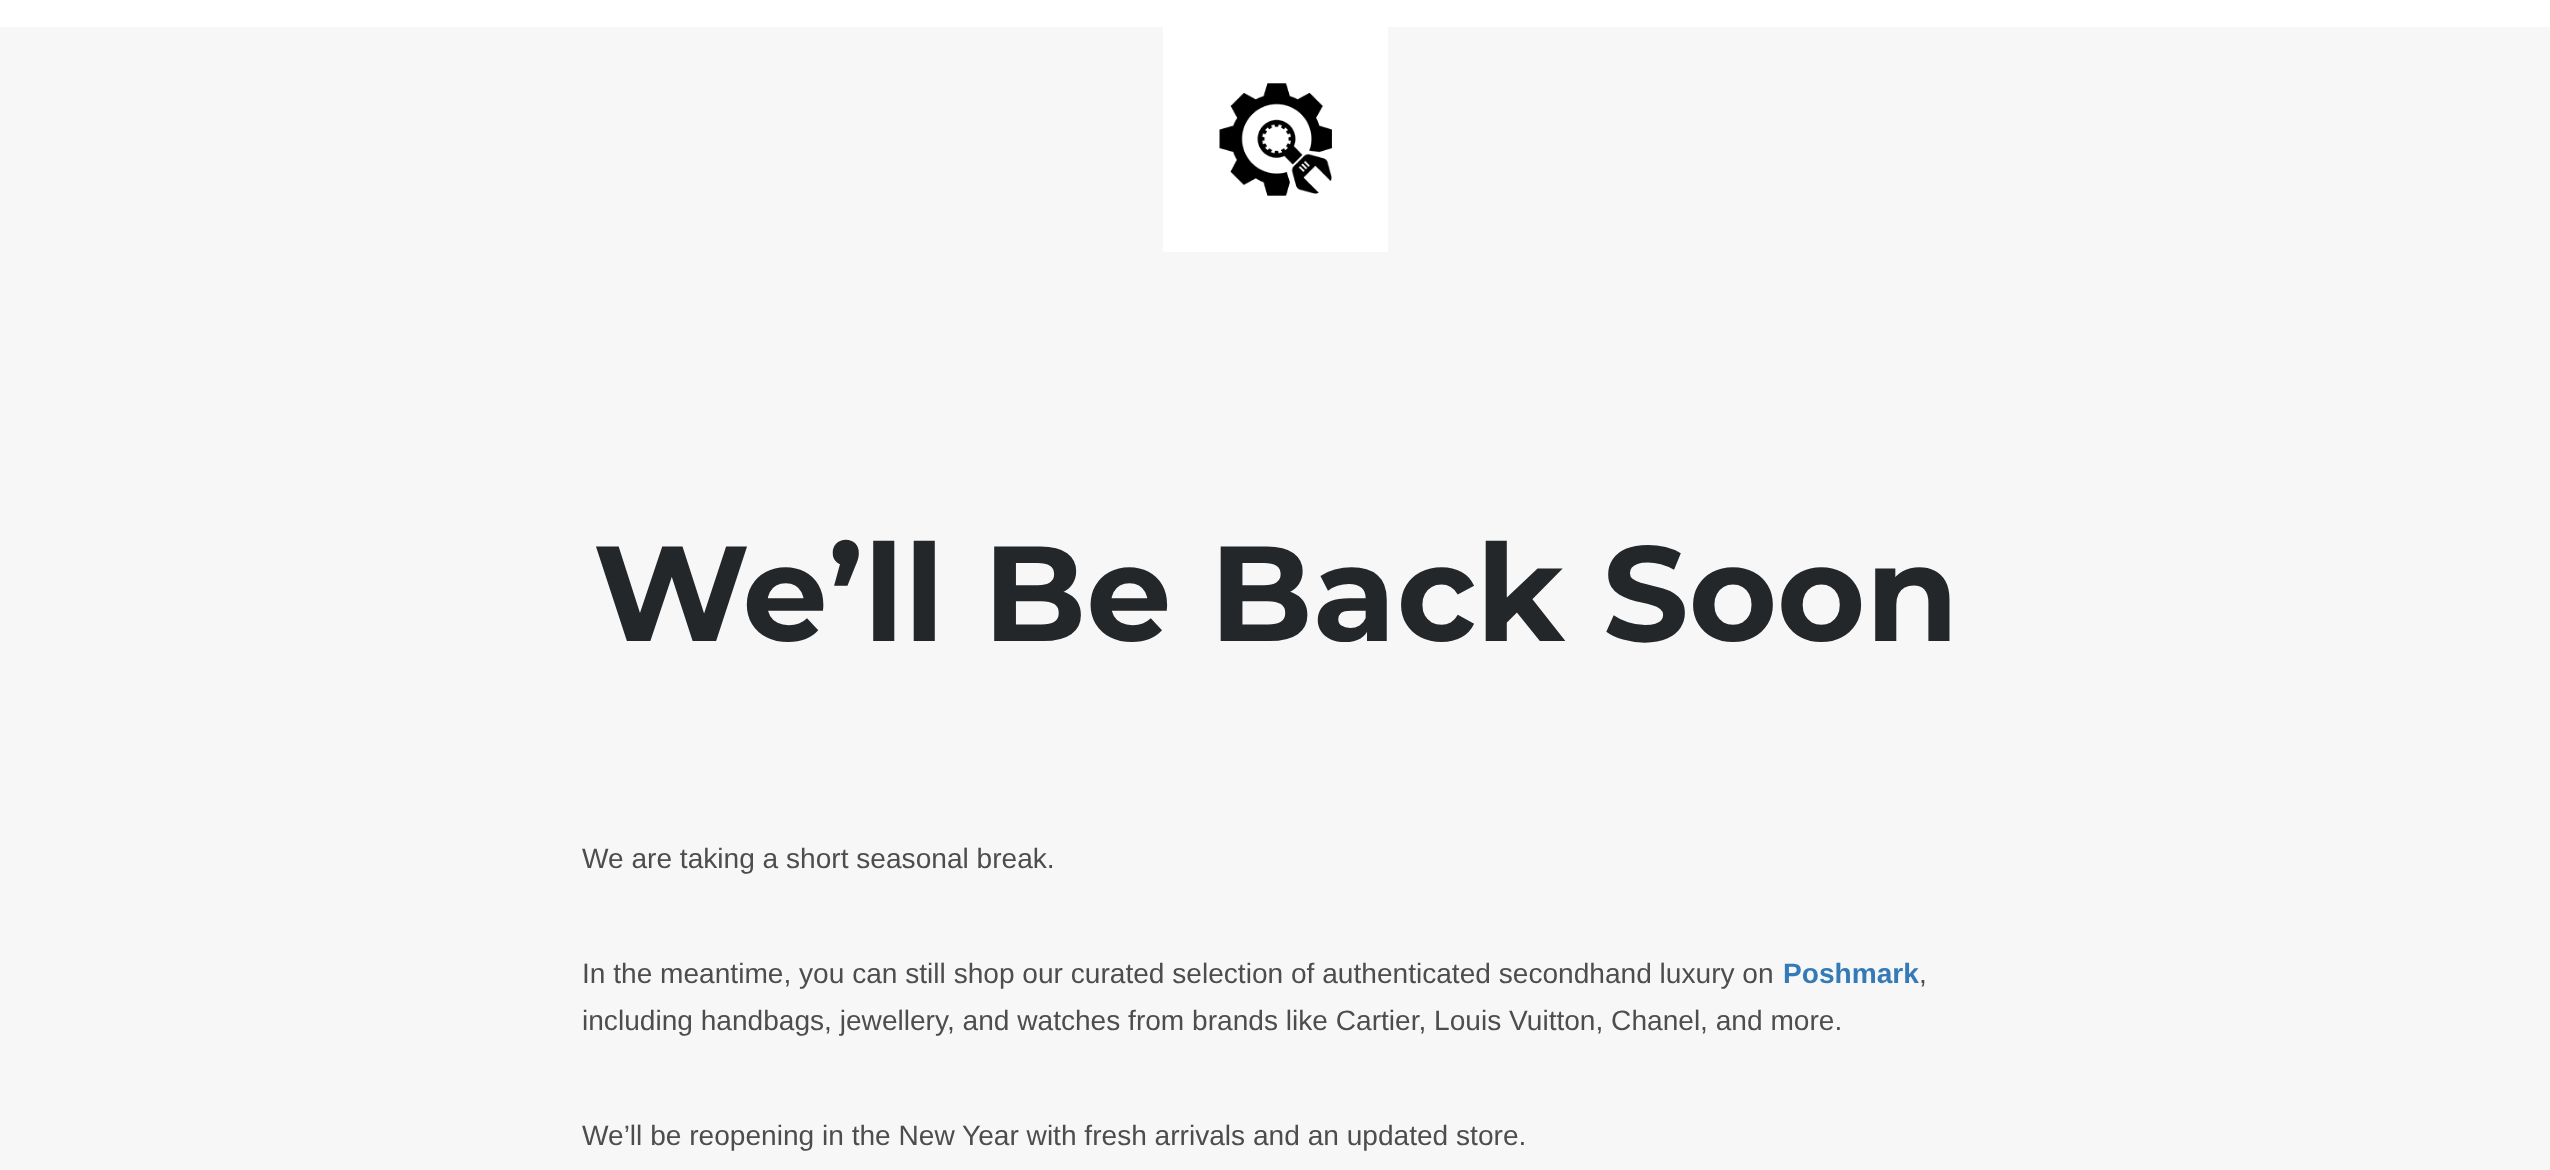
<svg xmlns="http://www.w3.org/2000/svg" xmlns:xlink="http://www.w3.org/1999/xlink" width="2550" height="1170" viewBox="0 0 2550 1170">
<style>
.cls-1{font:100 135px Montserrat;fill:#23272a}
.cls-2{font:28.1px Liberation Sans;fill:#4d4d4d}
.cls-3{font:bold 28.1px Liberation Sans;fill:#337ab7}
</style>
<rect width="100%" height="100%" fill="#f7f7f7"/>
<rect fill="#ffffff" x="0" y="0" width="2550" height="27"/>
<rect fill="#ffffff" x="1163" y="27" width="225" height="225"/>
<image xlink:href="image0.png" x="1219" y="83" width="113" height="113"/>
<text class="cls-1" x="593" y="641">We’ll Be Back Soon</text>
<text class="cls-2" x="582" y="868">We are taking a short seasonal break.</text>
<text class="cls-2" x="582" y="983">In the meantime, you can still shop our curated selection of authenticated secondhand luxury on</text>
<text class="cls-3" x="1783" y="983">Poshmark</text>
<text class="cls-2" x="1919" y="983">,</text>
<text class="cls-2" x="582" y="1030">including handbags, jewellery, and watches from brands like Cartier, Louis Vuitton, Chanel, and more.</text>
<text class="cls-2" x="582" y="1145">We’ll be reopening in the New Year with fresh arrivals and an updated store.</text>
</svg>
